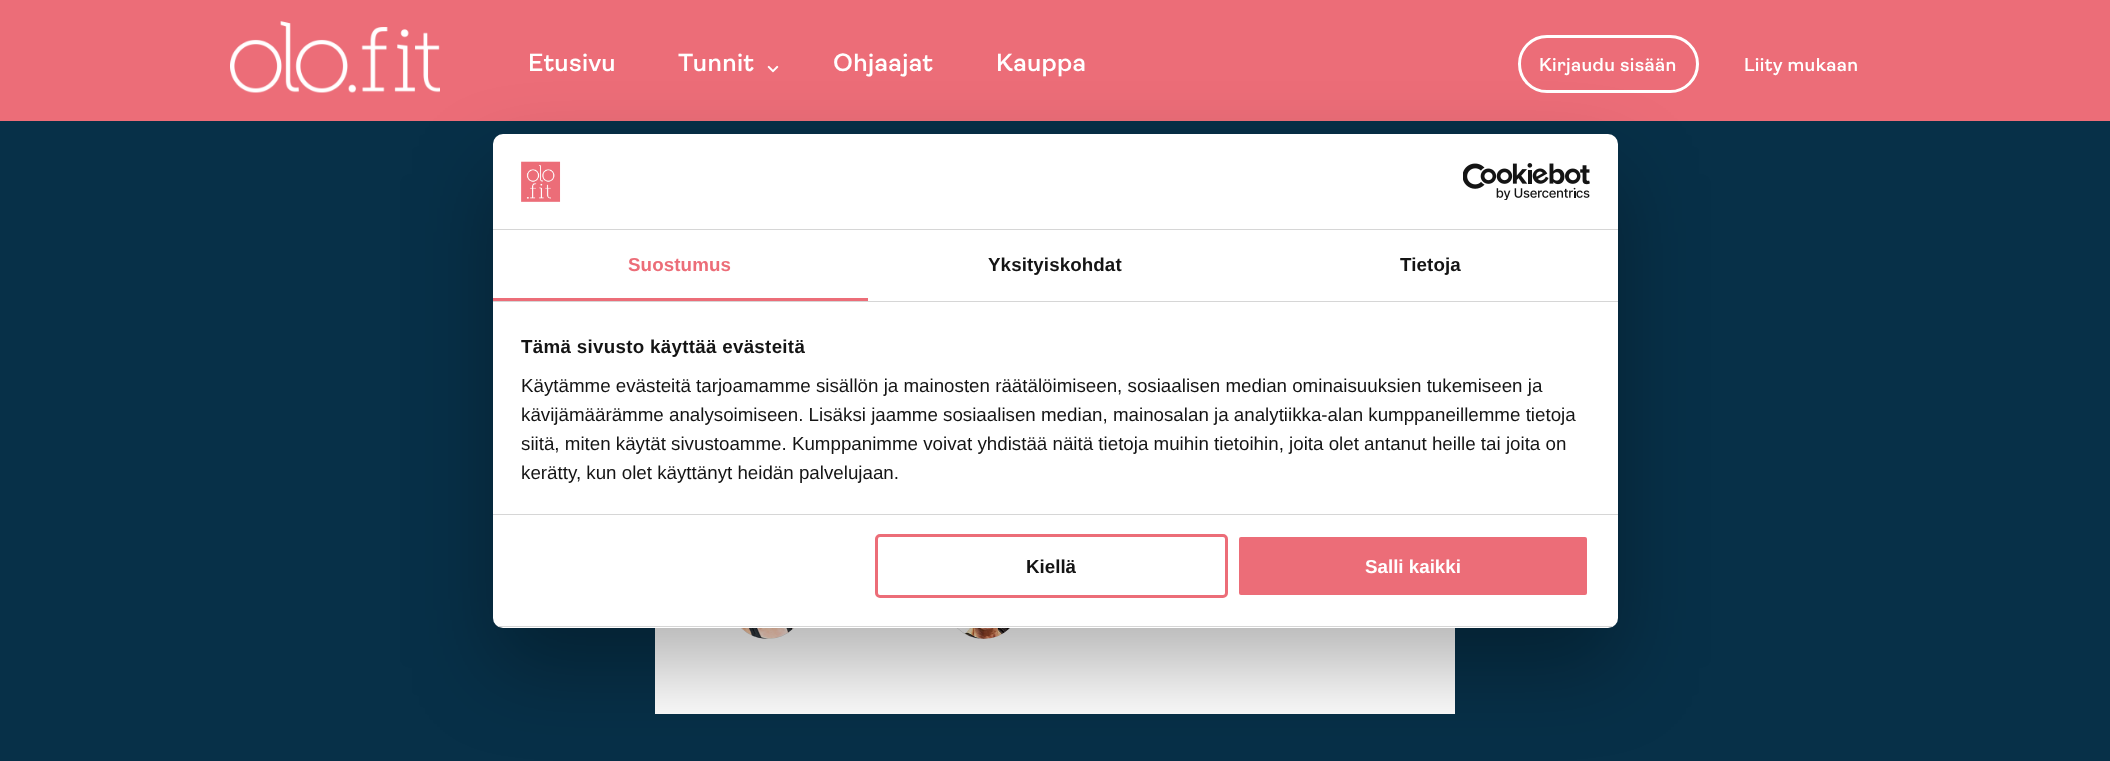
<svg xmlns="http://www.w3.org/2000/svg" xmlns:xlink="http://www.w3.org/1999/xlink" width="2110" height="761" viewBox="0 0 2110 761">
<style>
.cls-1{font:600 25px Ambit;letter-spacing:0.4px;fill:#ffffff}
.cls-2{font:600 18.75px Ambit;letter-spacing:0.4px;fill:#ffffff}
.cls-3{font:bold 18.75px Liberation Sans;letter-spacing:0.1px;fill:#ec6d78}
.cls-4{font:bold 18.75px Liberation Sans;letter-spacing:0.1px;fill:#141414}
.cls-5{font:bold 18.75px Liberation Sans;letter-spacing:0.3px;fill:#141414}
.cls-6{font:18.75px Liberation Sans;fill:#141414}
.cls-7{font:bold 18.75px Liberation Sans;fill:#141414}
.cls-8{font:bold 18.75px Liberation Sans;fill:#ffffff}
</style>
<defs>
<clipPath id="clip1"><rect x="493" y="134" width="1125" height="494" rx="10"/></clipPath>
</defs>
<rect width="100%" height="100%" fill="#073048"/>
<rect fill="#ec6d78" x="0" y="0" width="2110" height="121"/>
<image xlink:href="image0.png" x="230" y="21" width="210" height="72"/>
<image xlink:href="image1.png" x="767" y="65" width="12" height="8"/>
<rect fill="none" stroke="#ffffff" stroke-width="3" x="1519.5" y="36.5" width="178" height="55" rx="27.5"/>
<rect fill="#ffffff" x="655" y="628" width="800" height="86"/>
<circle fill="#cccccc" cx="767.5" cy="601.5" r="37.5"/>
<image xlink:href="image4.png" x="741" y="628" width="53" height="11"/>
<circle fill="#cccccc" cx="983.5" cy="601.5" r="37.5"/>
<image xlink:href="image5.png" x="957" y="628" width="53" height="11"/>
<rect fill="#000000" fill-opacity="0.3" filter="blur(42.5px)" x="493" y="174" width="1125" height="494" rx="10"/>
<rect fill="#ffffff" x="493" y="134" width="1125" height="494" rx="10"/>
<rect fill="#d6d6d6" x="493" y="229" width="1125" height="1"/>
<image xlink:href="image2.png" x="521" y="161" width="40" height="41"/>
<image xlink:href="image3.png" x="1463" y="163" width="127" height="37"/>
<rect fill="#d6d6d6" x="493" y="301" width="1125" height="1"/>
<rect fill="#ec6d78" x="493" y="298" width="375" height="3"/>
<rect fill="#d6d6d6" x="493" y="514" width="1125" height="1"/>
<g clip-path="url(#clip1)">
<rect fill="#d6d6d6" x="493" y="626" width="1125" height="1"/>
</g>
<rect fill="none" stroke="#ec6d78" stroke-width="3" x="876.5" y="535.5" width="350" height="61" rx="3.5"/>
<rect fill="#ec6d78" stroke="#ffffff" stroke-width="3" x="1237.5" y="535.5" width="351" height="61" rx="3.5"/>
<text class="cls-1" x="528" y="71">Etusivu</text>
<text class="cls-1" x="678" y="71">Tunnit</text>
<text class="cls-1" x="833" y="71">Ohjaajat</text>
<text class="cls-1" x="996" y="71">Kauppa</text>
<text class="cls-2" x="1539" y="71">Kirjaudu sisään</text>
<text class="cls-2" x="1744" y="71">Liity mukaan</text>
<text class="cls-3" x="628" y="271">Suostumus</text>
<text class="cls-4" x="988" y="271">Yksityiskohdat</text>
<text class="cls-4" x="1400" y="271">Tietoja</text>
<text class="cls-5" x="521" y="353">Tämä sivusto käyttää evästeitä</text>
<text class="cls-6"><tspan x="521" y="392">Käytämme evästeitä tarjoamamme sisällön ja mainosten räätälöimiseen, sosiaalisen median ominaisuuksien tukemiseen ja</tspan><tspan x="521" y="421">kävijämäärämme analysoimiseen. Lisäksi jaamme sosiaalisen median, mainosalan ja analytiikka-alan kumppaneillemme tietoja</tspan><tspan x="521" y="450">siitä, miten käytät sivustoamme. Kumppanimme voivat yhdistää näitä tietoja muihin tietoihin, joita olet antanut heille tai joita on</tspan><tspan x="521" y="479">kerätty, kun olet käyttänyt heidän palvelujaan.</tspan></text>
<text class="cls-7" x="1026" y="573">Kiellä</text>
<text class="cls-8" x="1365" y="573">Salli kaikki</text>
</svg>
